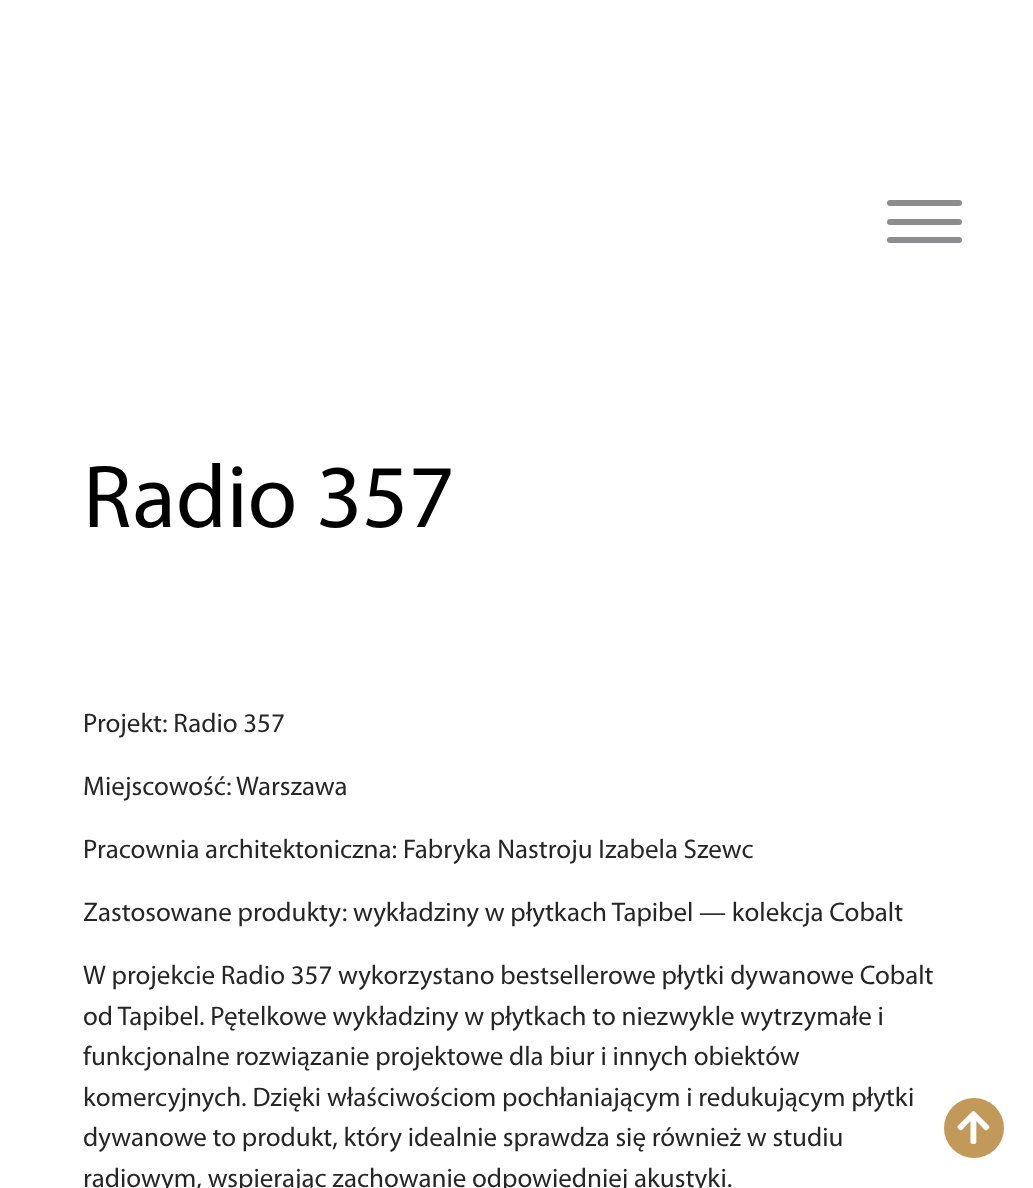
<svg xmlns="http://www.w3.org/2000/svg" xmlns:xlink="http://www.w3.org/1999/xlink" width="1033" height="1188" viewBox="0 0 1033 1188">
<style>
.cls-1{font:90px Myriad;fill:#000000}
.cls-2{font:27px Myriad;fill:#262626}
</style>
<rect width="100%" height="100%" fill="#ffffff"/>
<rect fill="#8d8d8f" x="887" y="200" width="75" height="6" rx="3"/>
<rect fill="#8d8d8f" x="887" y="219" width="75" height="6" rx="3"/>
<rect fill="#8d8d8f" x="887" y="237" width="75" height="6" rx="3"/>
<circle fill="#c29958" cx="974" cy="1128" r="30"/>
<image xlink:href="image0.png" x="957" y="1111" width="33" height="33"/>
<text class="cls-1" x="83" y="527">Radio 357</text>
<text class="cls-2" x="83" y="732">Projekt: Radio 357</text>
<text class="cls-2" x="83" y="795">Miejscowość:</text>
<text class="cls-2" x="236" y="795">Warszawa</text>
<text class="cls-2" x="83" y="858">Pracownia architektoniczna: Fabryka Nastroju Izabela Szewc</text>
<text class="cls-2" x="83" y="921">Zastosowane produkty: wykładziny w płytkach Tapibel — kolekcja Cobalt</text>
<text class="cls-2"><tspan x="83" y="984">W projekcie Radio 357 wykorzystano bestsellerowe płytki dywanowe Cobalt</tspan><tspan x="83" y="1025">od Tapibel. Pętelkowe wykładziny w płytkach to niezwykle wytrzymałe i</tspan><tspan x="83" y="1065">funkcjonalne rozwiązanie projektowe dla biur i innych obiektów</tspan><tspan x="83" y="1106">komercyjnych. Dzięki właściwościom pochłaniającym i redukującym płytki</tspan><tspan x="83" y="1146">dywanowe to produkt, który idealnie sprawdza się również w studiu</tspan><tspan x="83" y="1187">radiowym, wspierając zachowanie odpowiedniej akustyki.</tspan></text>
</svg>
